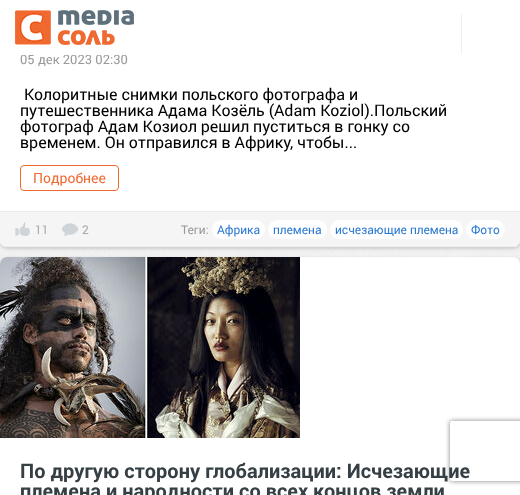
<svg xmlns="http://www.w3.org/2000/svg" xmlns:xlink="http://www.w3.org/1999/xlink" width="520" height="495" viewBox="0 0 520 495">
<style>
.cls-1{font:13px Roboto;fill:#999999}
.cls-2{font:16px Roboto;fill:#000000}
.cls-3{font:14px Roboto;fill:#ef6930}
.cls-4{font:12px Roboto;fill:#aaaaaa}
.cls-5{font:12px Roboto;fill:#999999}
.cls-6{font:12px Roboto;fill:#2c7ad2}
.cls-7{font:bold 20px Roboto;fill:#353f44}
</style>
<defs>
<clipPath id="clip1"><path d="M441 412H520V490H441ZM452 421H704C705 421 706 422 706 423V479C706 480 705 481 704 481H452C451 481 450 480 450 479V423C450 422 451 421 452 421Z" clip-rule="evenodd"/></clipPath>
</defs>
<rect width="100%" height="100%" fill="#ffffff"/>
<image xlink:href="image0.png" x="0" y="240" width="520" height="24"/>
<rect fill="#cccccc" filter="blur(1.5px)" x="0" y="-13" width="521" height="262" rx="8"/>
<rect fill="#ffffff" x="0" y="-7" width="520" height="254" rx="7"/>
<image xlink:href="image1.png" x="15" y="10" width="119" height="35"/>
<rect fill="#efefef" x="461" y="14" width="1" height="40"/>
<rect fill="#eeeeee" x="4" y="246" width="513" height="1"/>
<rect fill="none" stroke="#ef6930" x="20.5" y="165.5" width="98" height="25" rx="3.5"/>
<path fill="#f5f5f5" d="M0 211H520V239C520 243 517 246 513 246H7C3 246 0 243 0 239Z"/>
<rect fill="#eaeaea" x="0" y="211" width="520" height="1"/>
<image xlink:href="image2.png" x="15" y="222" width="15" height="14"/>
<image xlink:href="image3.png" x="62" y="223" width="16" height="13"/>
<rect fill="#ffffff" x="212" y="220" width="53" height="19" rx="9.5"/>
<rect fill="#ffffff" x="268" y="220" width="59" height="19" rx="9.5"/>
<rect fill="#ffffff" x="330" y="220" width="133" height="19" rx="9.5"/>
<rect fill="#ffffff" x="466" y="220" width="39" height="19" rx="9.5"/>
<rect fill="#cccccc" filter="blur(1.5px)" x="0" y="258" width="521" height="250" rx="8"/>
<rect fill="#ffffff" x="0" y="257" width="520" height="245" rx="7"/>
<image xlink:href="image4.png" x="0" y="257" width="300" height="181"/>
<g clip-path="url(#clip1)">
<rect fill="#808080" filter="blur(2.5px)" x="450" y="421" width="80" height="60" rx="2"/>
</g>
<text class="cls-1" x="20" y="64">05 дек 2023 02:30</text>
<rect fill="#ffffff" x="22" y="54" width="104" height="1"/>
<text class="cls-2" x="24" y="100">Колоритные снимки польского фотографа и</text>
<text class="cls-2"><tspan x="20" y="116">путешественника Адама Козёль (Adam Koziol).Польский</tspan><tspan x="20" y="132">фотограф Адам Козиол решил пуститься в гонку со</tspan><tspan x="20" y="148">временем. Он отправился в Африку, чтобы...</tspan></text>
<text class="cls-3" x="33" y="183">Подробнее</text>
<text class="cls-4" x="35" y="234">11</text>
<text class="cls-4" x="82" y="234">2</text>
<text class="cls-5" x="181" y="234">Теги:</text>
<text class="cls-6" x="217" y="234">Африка</text>
<text class="cls-6" x="273" y="234">племена</text>
<text class="cls-6" x="335" y="234">исчезающие племена</text>
<text class="cls-6" x="471" y="234">Фото</text>
<text class="cls-7"><tspan x="20" y="478">По другую сторону глобализации: Исчезающие</tspan><tspan x="20" y="498">племена и народности со всех концов земли</tspan></text>
</svg>
